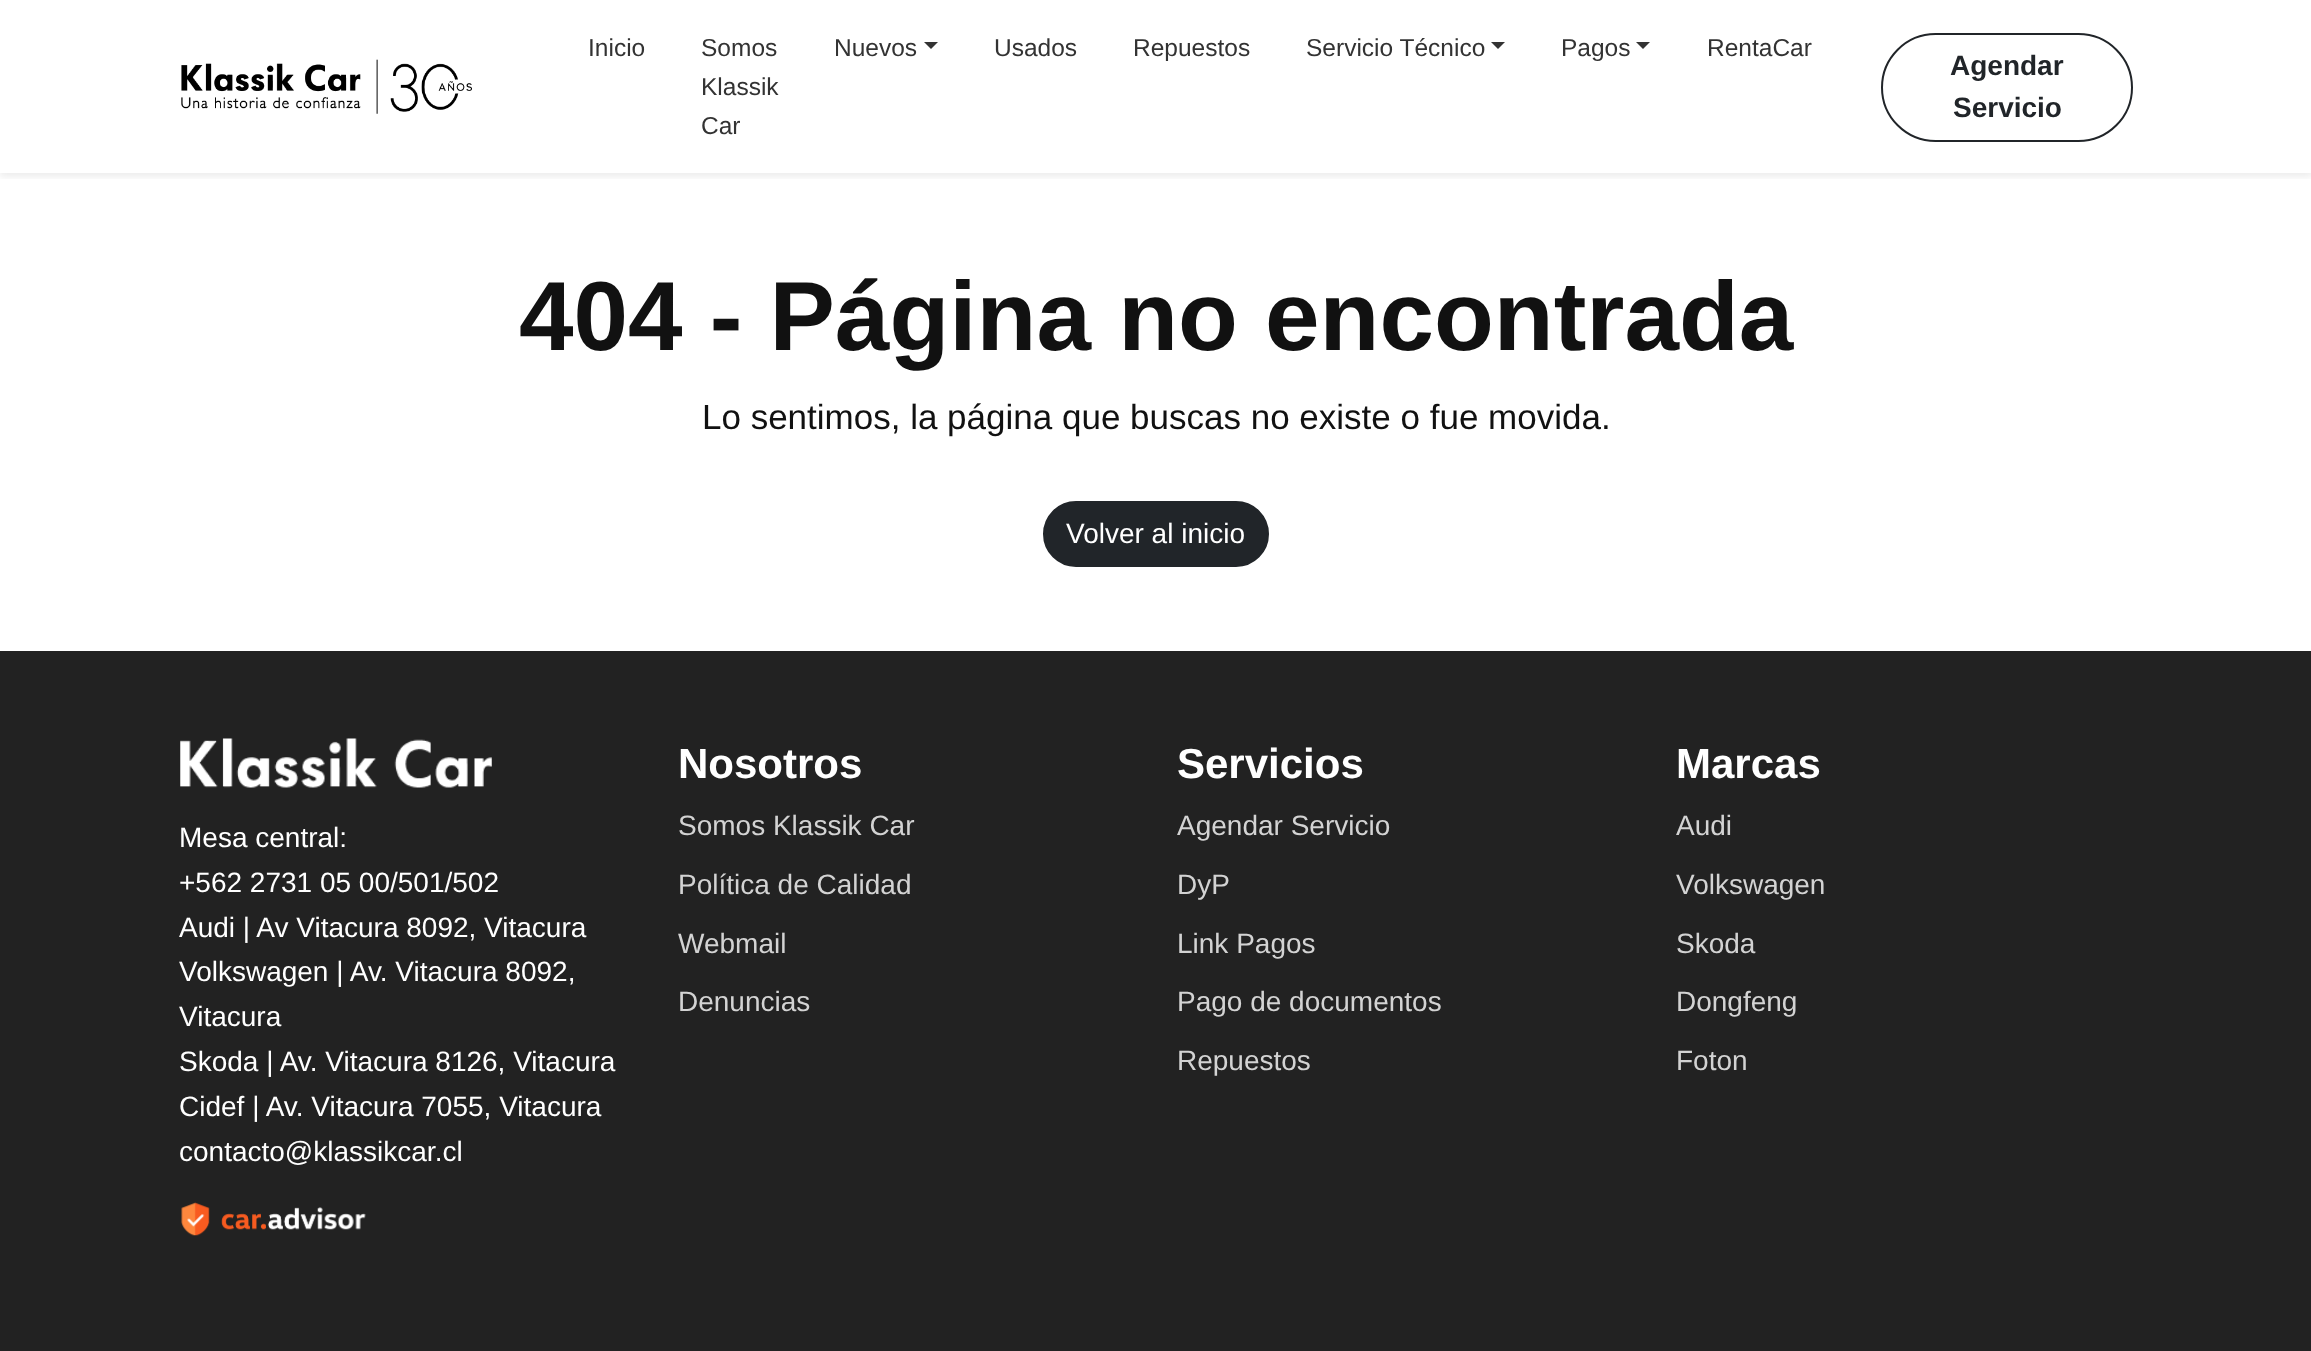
<svg xmlns="http://www.w3.org/2000/svg" xmlns:xlink="http://www.w3.org/1999/xlink" width="2311" height="1351" viewBox="0 0 2311 1351">
<style>
.cls-1{font:24.5px Liberation Sans;fill:#333333}
.cls-2{font:bold 28px Liberation Sans;fill:#212529}
.cls-3{font:bold 98px Liberation Sans;fill:#111111}
.cls-4{font:35px Liberation Sans;fill:#111111}
.cls-5{font:28px Liberation Sans;fill:#ffffff}
.cls-6{font:bold 42px Liberation Sans;fill:#ffffff}
.cls-7{font:28px Liberation Sans;fill:#d3d3d3}
</style>
<defs>
<clipPath id="clip1"><rect x="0" y="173" width="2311" height="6"/></clipPath>
</defs>
<rect width="100%" height="100%" fill="#ffffff"/>
<g clip-path="url(#clip1)">
<rect fill="#000000" fill-opacity="0.07" filter="blur(3.5px)" x="0" y="4" width="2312" height="173"/>
</g>
<image xlink:href="image0.png" x="181" y="59" width="291" height="55"/>
<path fill="#333333" d="M924 42H938L931 49Z"/>
<path fill="#333333" d="M1491 42H1505L1498 49Z"/>
<path fill="#333333" d="M1636 42H1650L1643 49Z"/>
<rect fill="none" stroke="#212529" stroke-width="2" x="1882" y="34" width="250" height="107" rx="53.5"/>
<rect fill="#212529" stroke="#212529" stroke-width="2" x="1044" y="502" width="224" height="64" rx="32"/>
<rect fill="#222222" x="0" y="651" width="2311" height="700"/>
<image xlink:href="image1.png" x="180" y="738" width="312" height="50"/>
<image xlink:href="image2.png" x="181" y="1202" width="185" height="34"/>
<text class="cls-1" x="588" y="56">Inicio</text>
<text class="cls-1"><tspan x="701" y="56">Somos</tspan><tspan x="701" y="95">Klassik</tspan><tspan x="701" y="134">Car</tspan></text>
<text class="cls-1" x="834" y="56">Nuevos</text>
<text class="cls-1" x="994" y="56">Usados</text>
<text class="cls-1" x="1133" y="56">Repuestos</text>
<text class="cls-1" x="1306" y="56">Servicio Técnico</text>
<text class="cls-1" x="1561" y="56">Pagos</text>
<text class="cls-1" x="1707" y="56">RentaCar</text>
<text class="cls-2" x="1950" y="75">Agendar</text>
<text class="cls-2" x="1953" y="117">Servicio</text>
<text class="cls-3" x="519" y="350">404 - Página no encontrada</text>
<text class="cls-4" x="702" y="429">Lo sentimos, la página que buscas no existe o fue movida.</text>
<text class="cls-5" x="1066" y="543">Volver al inicio</text>
<text class="cls-5"><tspan x="179" y="847">Mesa central:</tspan><tspan x="179" y="892">+562 2731 05 00/501/502</tspan><tspan x="179" y="937">Audi | Av Vitacura 8092, Vitacura</tspan><tspan x="179" y="981">Volkswagen | Av. Vitacura 8092,</tspan><tspan x="179" y="1026">Vitacura</tspan><tspan x="179" y="1071">Skoda | Av. Vitacura 8126, Vitacura</tspan><tspan x="179" y="1116">Cidef | Av. Vitacura 7055, Vitacura</tspan><tspan x="179" y="1161">contacto@klassikcar.cl</tspan></text>
<text class="cls-6" x="678" y="778">Nosotros</text>
<text class="cls-7" x="678" y="835">Somos Klassik Car</text>
<text class="cls-7" x="678" y="894">Política de Calidad</text>
<text class="cls-7" x="678" y="953">Webmail</text>
<text class="cls-7" x="678" y="1011">Denuncias</text>
<text class="cls-6" x="1177" y="778">Servicios</text>
<text class="cls-7" x="1177" y="835">Agendar Servicio</text>
<text class="cls-7" x="1177" y="894">DyP</text>
<text class="cls-7" x="1177" y="953">Link Pagos</text>
<text class="cls-7" x="1177" y="1011">Pago de documentos</text>
<text class="cls-7" x="1177" y="1070">Repuestos</text>
<text class="cls-6" x="1676" y="778">Marcas</text>
<text class="cls-7" x="1676" y="835">Audi</text>
<text class="cls-7" x="1676" y="894">Volkswagen</text>
<text class="cls-7" x="1676" y="953">Skoda</text>
<text class="cls-7" x="1676" y="1011">Dongfeng</text>
<text class="cls-7" x="1676" y="1070">Foton</text>
</svg>
